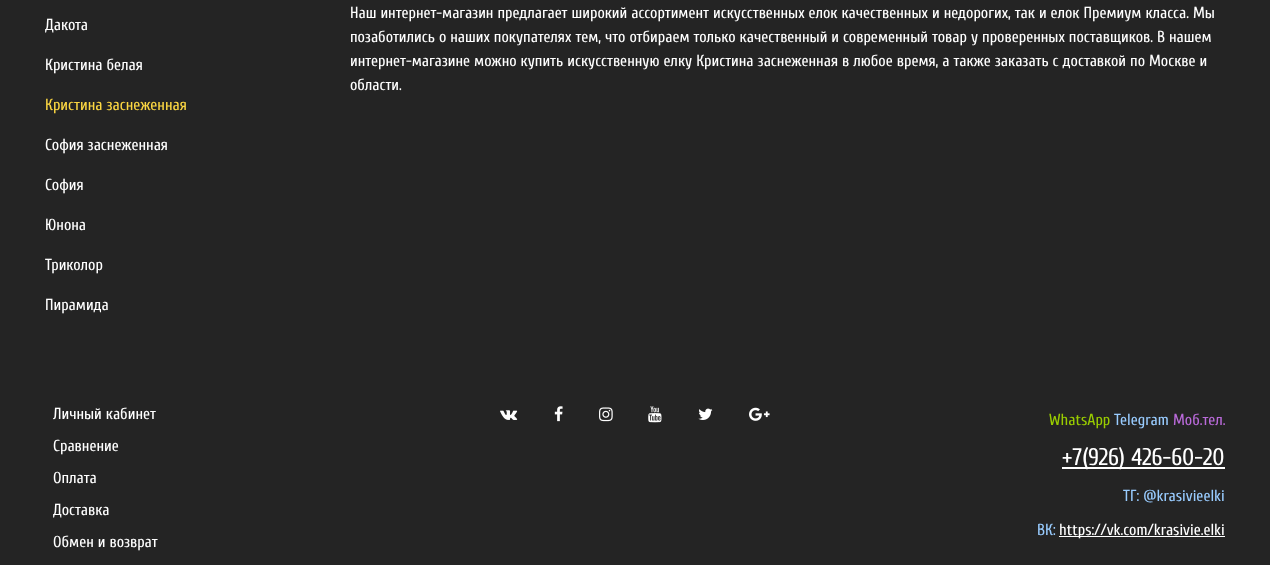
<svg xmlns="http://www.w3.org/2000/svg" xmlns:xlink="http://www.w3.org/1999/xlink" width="1270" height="565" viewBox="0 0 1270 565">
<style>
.cls-1{font:16px Cuprum;fill:#ffffff}
.cls-2{font:16px Cuprum;fill:#fcd742}
.cls-3{font:16px Cuprum;fill:#99cc00}
.cls-4{font:16px Cuprum;fill:#99ccff}
.cls-5{font:16px Cuprum;fill:#b96ad9}
.cls-6{font:24px Cuprum;fill:#ffffff}
</style>
<rect width="100%" height="100%" fill="#242424"/>
<image xlink:href="image0.png" x="500" y="410" width="18" height="10"/>
<image xlink:href="image1.png" x="554" y="406" width="9" height="16"/>
<image xlink:href="image2.png" x="599" y="407" width="14" height="15"/>
<image xlink:href="image3.png" x="648" y="406" width="14" height="17"/>
<image xlink:href="image4.png" x="698" y="408" width="15" height="12"/>
<image xlink:href="image5.png" x="749" y="407" width="21" height="14"/>
<rect fill="#ffffff" x="1062" y="467" width="163" height="2"/>
<rect fill="#ffffff" x="1059" y="536" width="166" height="1"/>
<text class="cls-1" x="45" y="30">Дакота</text>
<text class="cls-1" x="45" y="70">Кристина белая</text>
<text class="cls-2" x="45" y="110">Кристина заснеженная</text>
<text class="cls-1" x="45" y="150">София заснеженная</text>
<text class="cls-1" x="45" y="190">София</text>
<text class="cls-1" x="45" y="230">Юнона</text>
<text class="cls-1" x="45" y="270">Триколор</text>
<text class="cls-1" x="45" y="310">Пирамида</text>
<text class="cls-1"><tspan x="350" y="18">Наш интернет-магазин предлагает широкий ассортимент искусственных елок качественных и недорогих, так и елок Премиум класса. Мы</tspan><tspan x="350" y="42">позаботились о наших покупателях тем, что отбираем только качественный и современный товар у проверенных поставщиков. В нашем</tspan><tspan x="350" y="66">интернет-магазине можно купить искусственную елку Кристина заснеженная в любое время, а также заказать с доставкой по Москве и</tspan><tspan x="350" y="90">области.</tspan></text>
<text class="cls-1" x="53" y="419">Личный кабинет</text>
<text class="cls-1" x="53" y="451">Сравнение</text>
<text class="cls-1" x="53" y="483">Оплата</text>
<text class="cls-1" x="53" y="515">Доставка</text>
<text class="cls-1" x="53" y="547">Обмен и возврат</text>
<text class="cls-3" x="1049" y="425">WhatsApp</text>
<text class="cls-4" x="1114" y="425">Telegram</text>
<text class="cls-5" x="1173" y="425">Моб.тел.</text>
<text class="cls-6" x="1062" y="465">+7(926) 426-60-20</text>
<text class="cls-4" x="1123" y="501">ТГ: @krasivieelki</text>
<text class="cls-4" x="1037" y="535">ВК:</text>
<text class="cls-1" x="1059" y="535">https://vk.com/krasivie.elki</text>
</svg>
